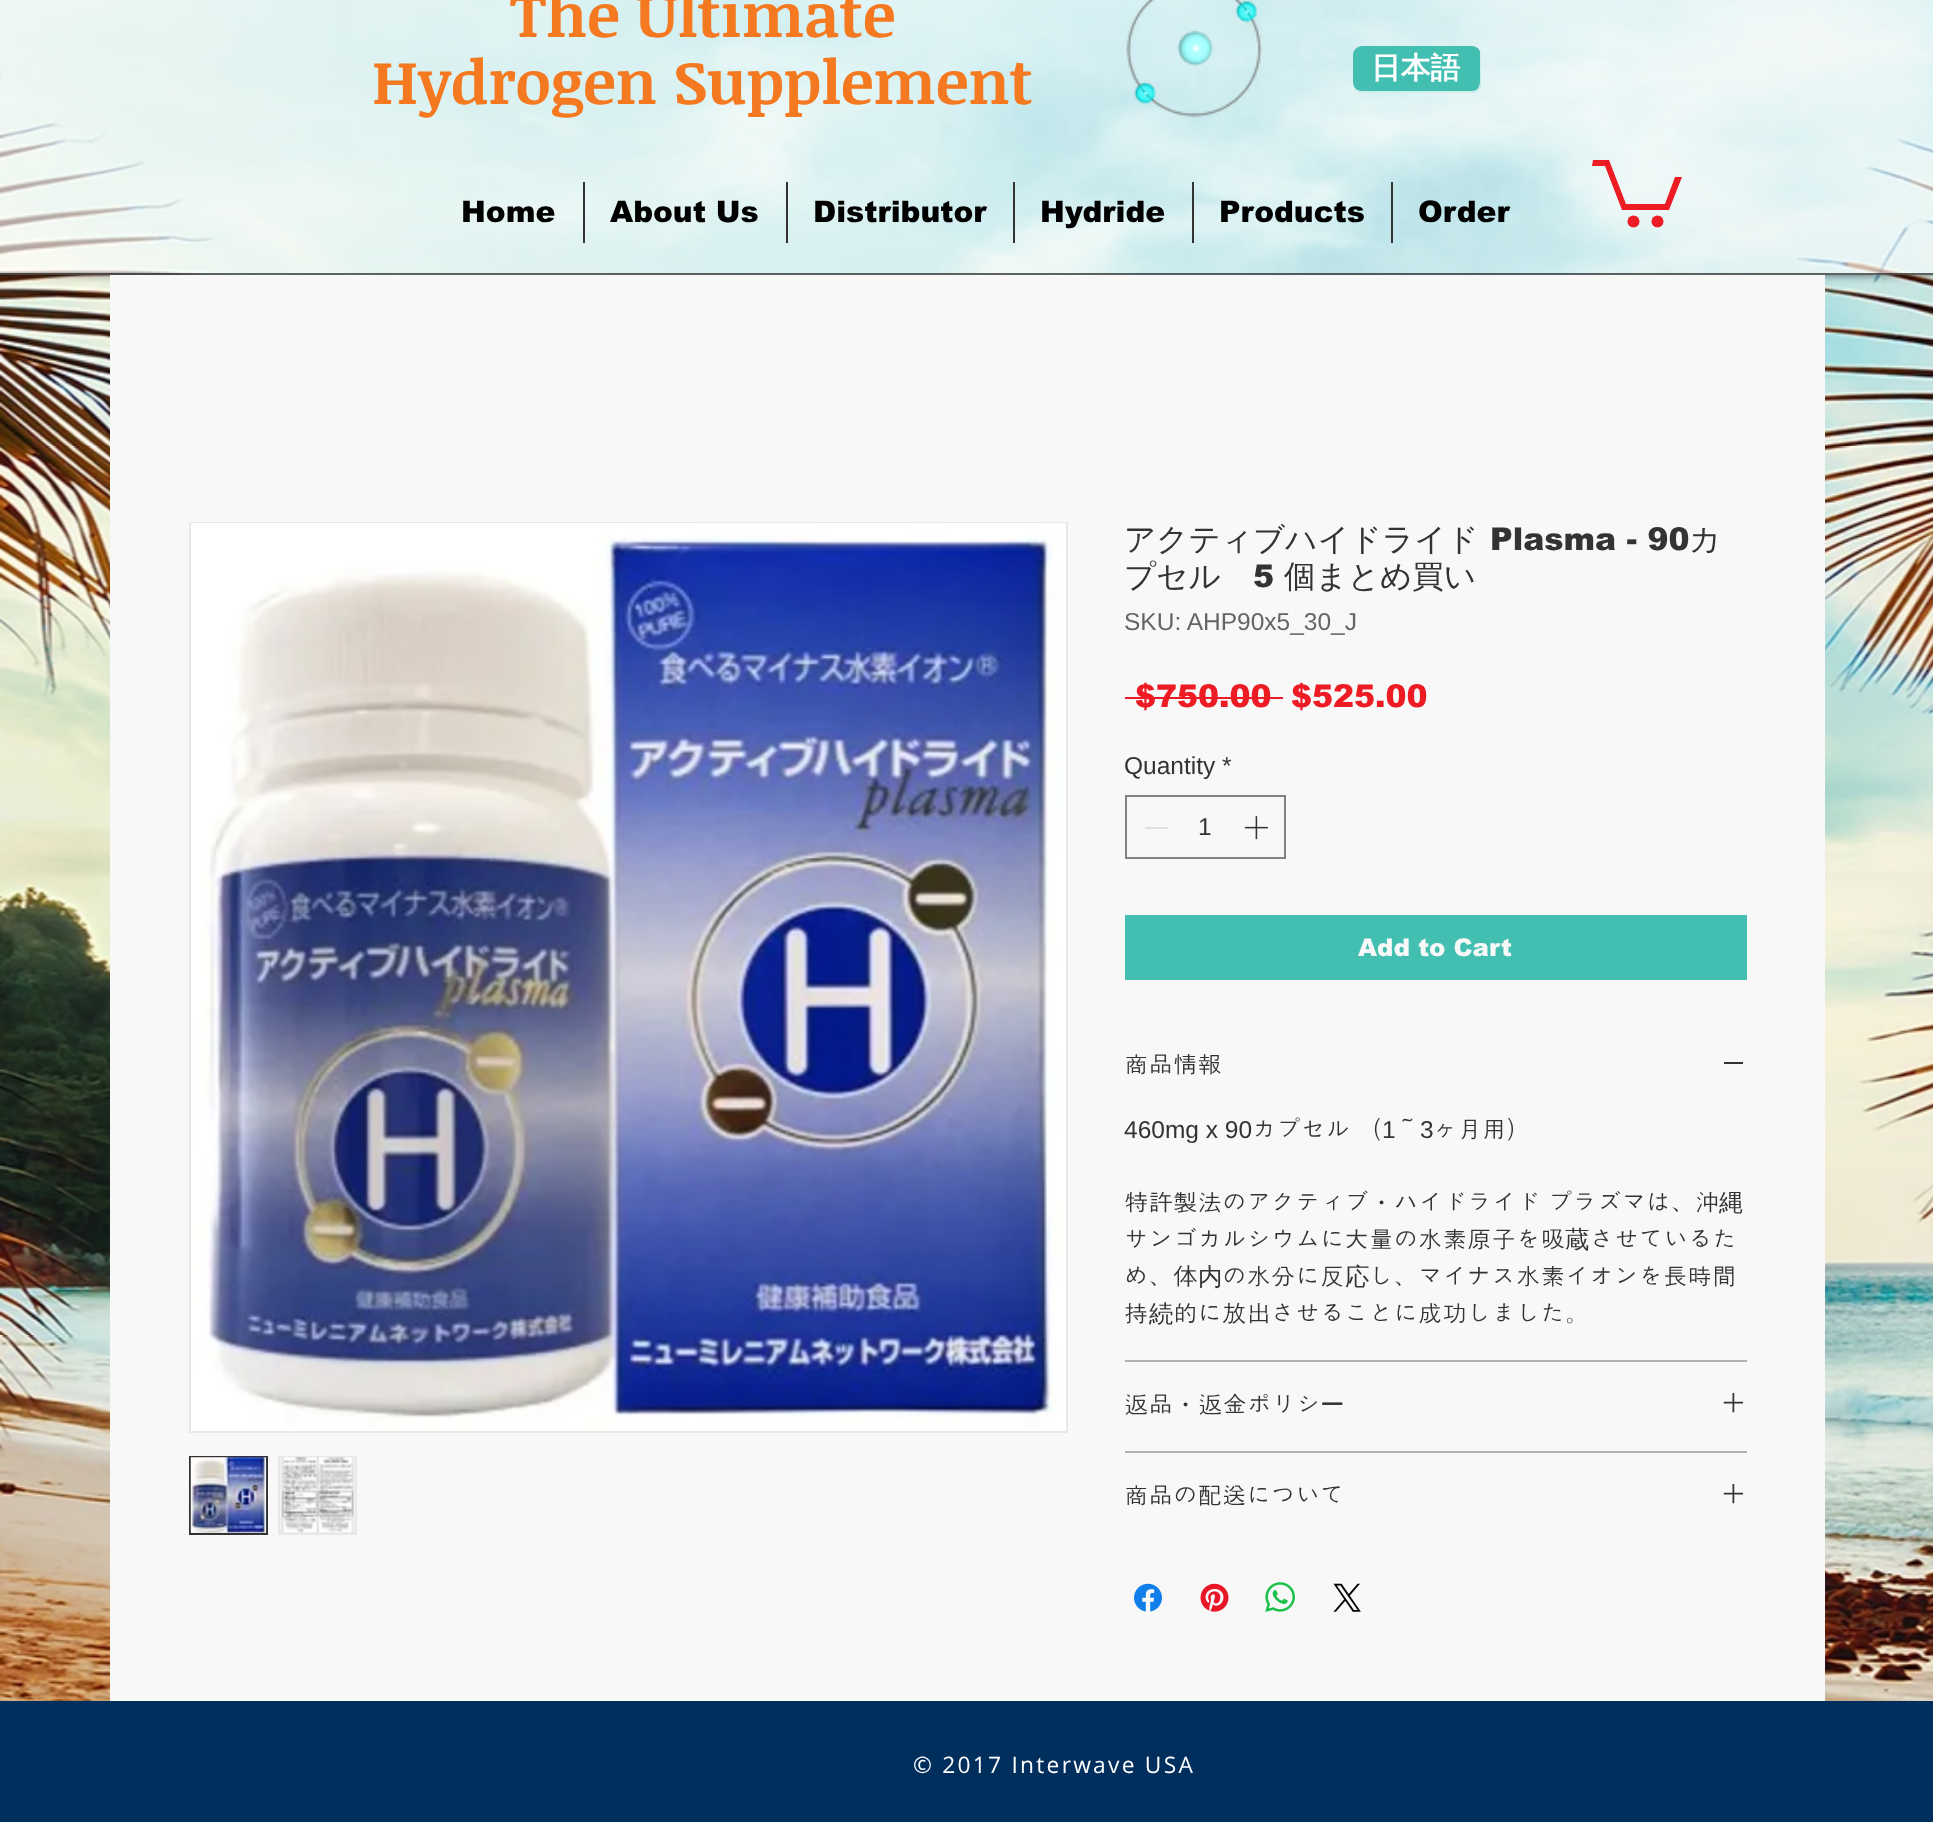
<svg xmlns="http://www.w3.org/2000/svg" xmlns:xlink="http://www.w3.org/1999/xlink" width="1933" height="1822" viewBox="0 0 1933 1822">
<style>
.cls-1{font:bold 61.25px Noticia Text;fill:#f57920}
.cls-2{font:bold 29.75px WenQuanYi Zen Hei;fill:#ffffff}
.cls-3{font:900 29.75px arial;fill:#000000}
.cls-4{font:500 31.5px WenQuanYi Zen Hei;fill:#333333}
.cls-5{font:900 31.5px arial;fill:#333333}
.cls-6{font:24.5px Liberation Sans;fill:#656565}
.cls-7{font:900 31.5px arial;fill:#ed1c24}
.cls-8{font:24.5px Liberation Sans;fill:#333333}
.cls-9{font:900 24.5px arial;fill:#f8f8f8}
.cls-10{font:24.5px Dotum;fill:#333333}
.cls-11{font:500 24.5px WenQuanYi Zen Hei;fill:#333333}
.cls-12{font:22.75px Open Sans;letter-spacing:2.25px;fill:#ffffff}
</style>
<defs>
<clipPath id="clip1"><path d="M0 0H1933V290H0ZM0-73H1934V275H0Z" clip-rule="evenodd"/></clipPath>
</defs>
<rect width="100%" height="100%" fill="#ffffff"/>
<image xlink:href="image0.png" x="0" y="0" width="1933" height="1701"/>
<g clip-path="url(#clip1)">
<rect fill="#000000" fill-opacity="0.6" filter="blur(4.5px)" x="0" y="-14" width="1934" height="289"/>
</g>
<rect fill="#ffffff" fill-opacity="0.6" x="0" y="0" width="1933" height="275"/>
<image xlink:href="image1.png" x="0" y="0" width="1933" height="274"/>
<rect fill="#000000" fill-opacity="0.6" x="0" y="273" width="1933" height="2"/>
<image xlink:href="image2.png" x="1126" y="0" width="136" height="118"/>
<rect fill="#42bfb0" x="1353" y="46" width="128" height="47" rx="9"/>
<path fill="#ffffff" fill-opacity="0.75" d="M1353 82V84C1353 89 1357 93 1362 93H1472C1477 93 1481 89 1481 84V55C1481 53 1481 52 1480 51V72C1480 78 1482 91 1472 91H1362C1357 91 1353 87 1353 82Z"/>
<rect fill="#333333" x="583" y="182" width="2" height="61"/>
<rect fill="#333333" x="786" y="182" width="2" height="61"/>
<rect fill="#333333" x="1013" y="182" width="2" height="61"/>
<rect fill="#333333" x="1192" y="182" width="2" height="61"/>
<rect fill="#333333" x="1391" y="182" width="2" height="61"/>
<path fill="#ed1c24" d="M1682 177L1669 210H1622L1605 166H1592L1593 160H1609L1626 204H1665L1675 177"/>
<circle fill="#ed1c24" cx="1657.5" cy="221.5" r="6"/>
<circle fill="#ed1c24" cx="1633.5" cy="221.5" r="6"/>
<rect fill="#f8f8f8" x="110" y="275" width="1715" height="1426"/>
<rect fill="none" stroke="#e8e8e8" stroke-width="2" x="190" y="523" width="877" height="909"/>
<image xlink:href="image3.png" x="191" y="523" width="875" height="908"/>
<rect fill="#e8e8e8" stroke="#333333" stroke-width="2" x="190" y="1457" width="77" height="77"/>
<image xlink:href="image4.png" x="190" y="1457" width="77" height="76"/>
<rect fill="#e8e8e8" x="278" y="1456" width="79" height="79"/>
<image xlink:href="image5.png" x="280" y="1457" width="76" height="76"/>
<rect fill="#ed1c24" x="1125" y="697" width="158" height="2"/>
<rect fill="none" stroke="#828282" stroke-width="2" x="1126" y="796" width="159" height="62"/>
<rect fill="#e0e0e0" x="1145" y="827" width="23" height="2"/>
<image xlink:href="image6.png" x="1244" y="816" width="24" height="24"/>
<rect fill="#42bfb0" x="1125" y="915" width="622" height="65"/>
<rect fill="#b2b1b1" x="1125" y="1360" width="622" height="2"/>
<rect fill="#333333" x="1724" y="1062" width="19" height="2"/>
<rect fill="#b2b1b1" x="1125" y="1451" width="622" height="2"/>
<image xlink:href="image7.png" x="1723" y="1393" width="20" height="20"/>
<image xlink:href="image7.png" x="1723" y="1484" width="20" height="20"/>
<image xlink:href="image8.png" x="1134" y="1583" width="28" height="29"/>
<image xlink:href="image9.png" x="1200" y="1583" width="29" height="29"/>
<image xlink:href="image10.png" x="1265" y="1582" width="30" height="30"/>
<image xlink:href="image11.png" x="1333" y="1583" width="28" height="29"/>
<rect fill="#002e5d" x="0" y="1701" width="1933" height="121"/>
<text class="cls-1" x="510" y="37">The Ultimate</text>
<text class="cls-1" x="372" y="104">Hydrogen Supplement</text>
<text class="cls-2" x="1371" y="78">日本語</text>
<text class="cls-3" x="461" y="222">Home</text>
<text class="cls-3" x="610" y="222">About Us</text>
<text class="cls-3" x="813" y="222">Distributor</text>
<text class="cls-3" x="1040" y="222">Hydride</text>
<text class="cls-3" x="1219" y="222">Products</text>
<text class="cls-3" x="1418" y="222">Order</text>
<text class="cls-4" x="1124" y="550">アクティブハイドライド</text>
<text class="cls-5" x="1490" y="550">Plasma - 90</text>
<text class="cls-4" x="1689" y="550">カ</text>
<text class="cls-4" x="1124" y="587">プセル</text>
<text class="cls-5" x="1253" y="587">5</text>
<text class="cls-4" x="1284" y="587">個まとめ買い</text>
<text class="cls-6" x="1124" y="630">SKU: AHP90x5_30_J</text>
<text class="cls-7" x="1135" y="707">$750.00</text>
<text class="cls-7" x="1291" y="707">$525.00</text>
<text class="cls-8" x="1124" y="774">Quantity *</text>
<text class="cls-8" x="1198" y="835">1</text>
<text class="cls-9" x="1358" y="956">Add to Cart</text>
<text class="cls-10" x="1124" y="1073">商品情報</text>
<text class="cls-8" x="1124" y="1138">460mg x 90</text>
<text class="cls-10" x="1252" y="1138">カプセル</text>
<text class="cls-10" x="1357" y="1138">（</text>
<text class="cls-8" x="1382" y="1138">1</text>
<text class="cls-10" x="1395" y="1138">～</text>
<text class="cls-8" x="1420" y="1138">3</text>
<text class="cls-10" x="1433" y="1138">ヶ月用）</text>
<text class="cls-10" x="1124" y="1211">特許製法のアクティブ</text>
<text class="cls-11" x="1369" y="1211">・</text>
<text class="cls-10" x="1394" y="1211" word-spacing="-1">ハイドライド プラズマは、沖</text>
<text class="cls-11" x="1719" y="1211">縄</text>
<text class="cls-10" x="1124" y="1248">サンゴカルシウムに大量の水素原子を吸</text>
<text class="cls-11" x="1565" y="1248">蔵</text>
<text class="cls-10" x="1590" y="1248">させているた</text>
<text class="cls-10" x="1124" y="1285">め、体</text>
<text class="cls-11" x="1198" y="1285">内</text>
<text class="cls-10" x="1222" y="1285">の水分に反</text>
<text class="cls-11" x="1345" y="1285">応</text>
<text class="cls-10" x="1369" y="1285">し、マイナス水素イオンを長時間</text>
<text class="cls-10" x="1124" y="1322">持</text>
<text class="cls-11" x="1149" y="1322">続</text>
<text class="cls-10" x="1173" y="1322">的に放出させることに成功しました。</text>
<text class="cls-10" x="1124" y="1413">返品</text>
<text class="cls-11" x="1173" y="1413">・</text>
<text class="cls-10" x="1198" y="1413">返金ポリシ</text>
<text class="cls-11" x="1320" y="1413">ー</text>
<text class="cls-10" x="1124" y="1504">商品の配送について</text>
<text class="cls-12" x="913" y="1773">© 2017 Interwave USA</text>
</svg>
